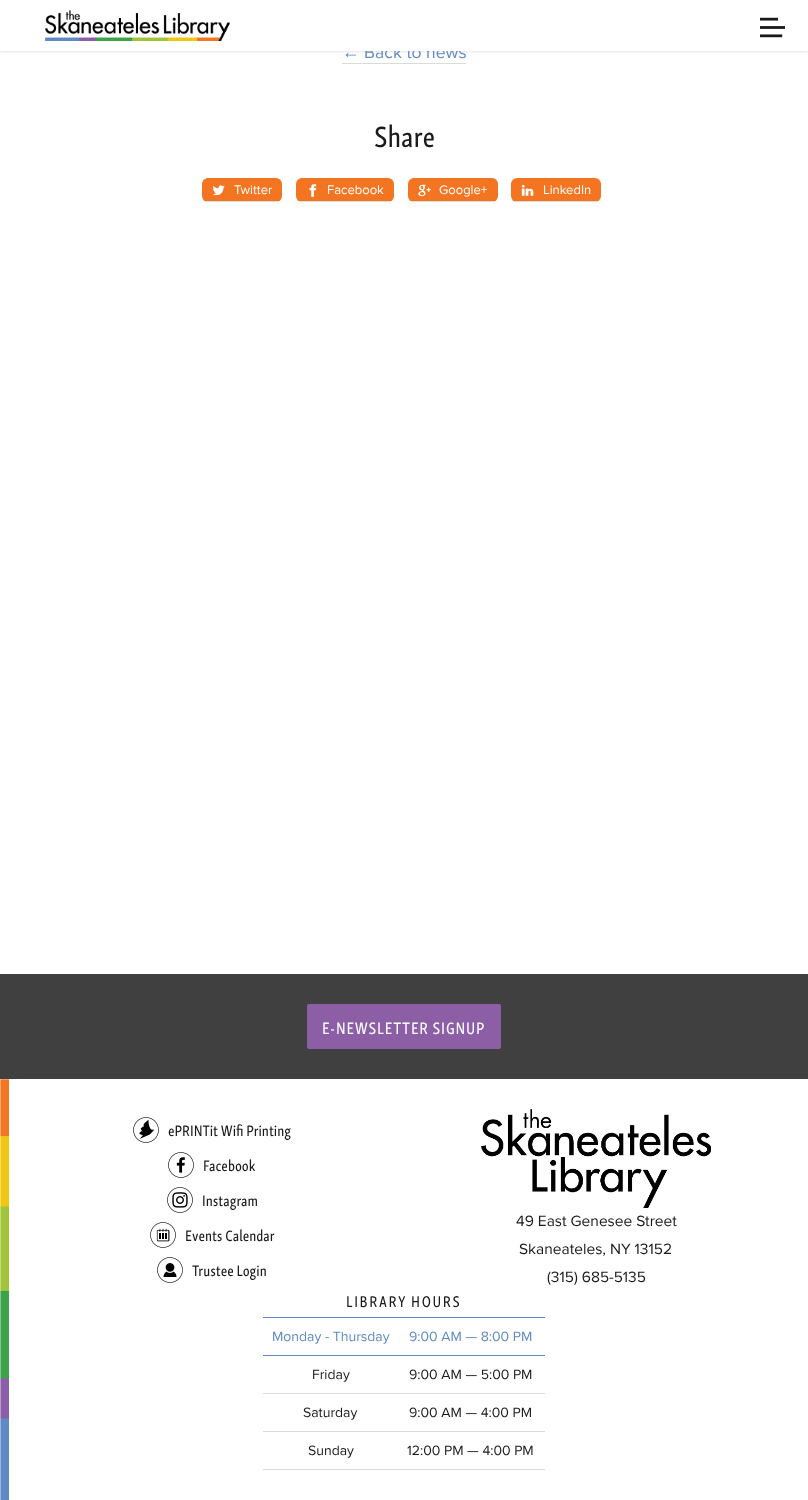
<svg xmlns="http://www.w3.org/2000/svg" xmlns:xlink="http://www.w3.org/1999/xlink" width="808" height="1500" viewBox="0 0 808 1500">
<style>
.cls-1{font:17.5px Liberation Sans;fill:#618ac6}
.cls-2{font:17.5px Proxima Nova;fill:#618ac6}
.cls-3{font:500 30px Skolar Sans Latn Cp;fill:#1a1a1a}
.cls-4{font:13px Proxima Nova;fill:#ffffff}
.cls-5{font:500 17px Skolar Sans Latn Cp;letter-spacing:0.8px;fill:#ffffff}
.cls-6{font:500 15.5px Skolar Sans Latn Cp;fill:#1a1a1a}
.cls-7{font:15.5px Proxima Nova;fill:#1a1a1a}
.cls-8{font:500 16px Skolar Sans Latn Cp;letter-spacing:1.6px;fill:#1a1a1a}
.cls-9{font:14px Proxima Nova;fill:#618ac6}
.cls-10{font:14px Proxima Nova;fill:#1a1a1a}
</style>
<rect width="100%" height="100%" fill="#404040"/>
<rect fill="#ffffff" x="0" y="51" width="808" height="923"/>
<rect fill="#000000" fill-opacity="0.1" filter="blur(1px)" x="0" y="1" width="808" height="51"/>
<rect fill="#d8ddd9" x="342" y="63" width="124" height="1"/>
<rect fill="#f37521" x="202" y="178" width="80" height="24" rx="6"/>
<rect fill="#d8ddd9" x="205" y="201" width="74" height="1"/>
<image xlink:href="image2.png" x="212" y="185" width="13" height="11"/>
<rect fill="#f37521" x="296" y="178" width="98" height="24" rx="6"/>
<rect fill="#d8ddd9" x="299" y="201" width="92" height="1"/>
<image xlink:href="image3.png" x="309" y="184" width="8" height="13"/>
<rect fill="#f37521" x="408" y="178" width="90" height="24" rx="6"/>
<rect fill="#d8ddd9" x="411" y="201" width="84" height="1"/>
<image xlink:href="image4.png" x="418" y="184" width="13" height="13"/>
<rect fill="#f37521" x="511" y="178" width="90" height="24" rx="6"/>
<rect fill="#d8ddd9" x="514" y="201" width="84" height="1"/>
<image xlink:href="image5.png" x="521" y="184" width="13" height="12"/>
<rect fill="#8c5ea6" x="307" y="1004" width="194" height="45" rx="2"/>
<rect fill="#ffffff" x="0" y="1079" width="808" height="421"/>
<image xlink:href="image6.png" x="0" y="1079" width="9" height="421"/>
<image xlink:href="image7.png" x="133" y="1117" width="26" height="26"/>
<image xlink:href="image8.png" x="168" y="1152" width="26" height="26"/>
<image xlink:href="image9.png" x="167" y="1187" width="26" height="26"/>
<image xlink:href="image10.png" x="150" y="1222" width="26" height="26"/>
<image xlink:href="image11.png" x="157" y="1257" width="26" height="26"/>
<image xlink:href="image12.png" x="481" y="1109" width="230" height="99"/>
<rect fill="#618ac6" x="263" y="1317" width="282" height="1"/>
<rect fill="#618ac6" x="263" y="1355" width="282" height="1"/>
<rect fill="#d8ddd9" x="263" y="1393" width="282" height="1"/>
<rect fill="#d8ddd9" x="263" y="1431" width="282" height="1"/>
<rect fill="#d8ddd9" x="263" y="1469" width="282" height="1"/>
<text class="cls-1" x="342" y="58">←</text>
<text class="cls-2" x="364" y="58">Back to news</text>
<rect fill="#ffffff" x="0" y="0" width="808" height="51"/>
<image xlink:href="image1.png" x="760" y="17" width="25" height="21"/>
<image xlink:href="image0.png" x="45" y="10" width="185" height="31"/>
<text class="cls-3" x="374" y="147">Share</text>
<text class="cls-4" x="234" y="194">Twitter</text>
<text class="cls-4" x="327" y="194">Facebook</text>
<text class="cls-4" x="439" y="194">Google+</text>
<text class="cls-4" x="543" y="194">LinkedIn</text>
<text class="cls-5" x="322" y="1034">E-NEWSLETTER SIGNUP</text>
<text class="cls-6" x="168" y="1136">ePRINTit Wifi Printing</text>
<text class="cls-6" x="203" y="1171">Facebook</text>
<text class="cls-6" x="202" y="1206">Instagram</text>
<text class="cls-6" x="185" y="1241">Events Calendar</text>
<text class="cls-6" x="192" y="1276">Trustee Login</text>
<text class="cls-7" x="516" y="1226">49 East Genesee Street</text>
<text class="cls-7" x="519" y="1254">Skaneateles, NY 13152</text>
<text class="cls-7" x="547" y="1282">(315) 685-5135</text>
<text class="cls-8" x="346" y="1307">LIBRARY HOURS</text>
<text class="cls-9" x="272" y="1341">Monday - Thursday</text>
<text class="cls-9" x="409" y="1341">9:00 AM — 8:00 PM</text>
<text class="cls-10" x="312" y="1379">Friday</text>
<text class="cls-10" x="409" y="1379">9:00 AM — 5:00 PM</text>
<text class="cls-10" x="303" y="1417">Saturday</text>
<text class="cls-10" x="409" y="1417">9:00 AM — 4:00 PM</text>
<text class="cls-10" x="308" y="1455">Sunday</text>
<text class="cls-10" x="407" y="1455">12:00 PM — 4:00 PM</text>
</svg>
